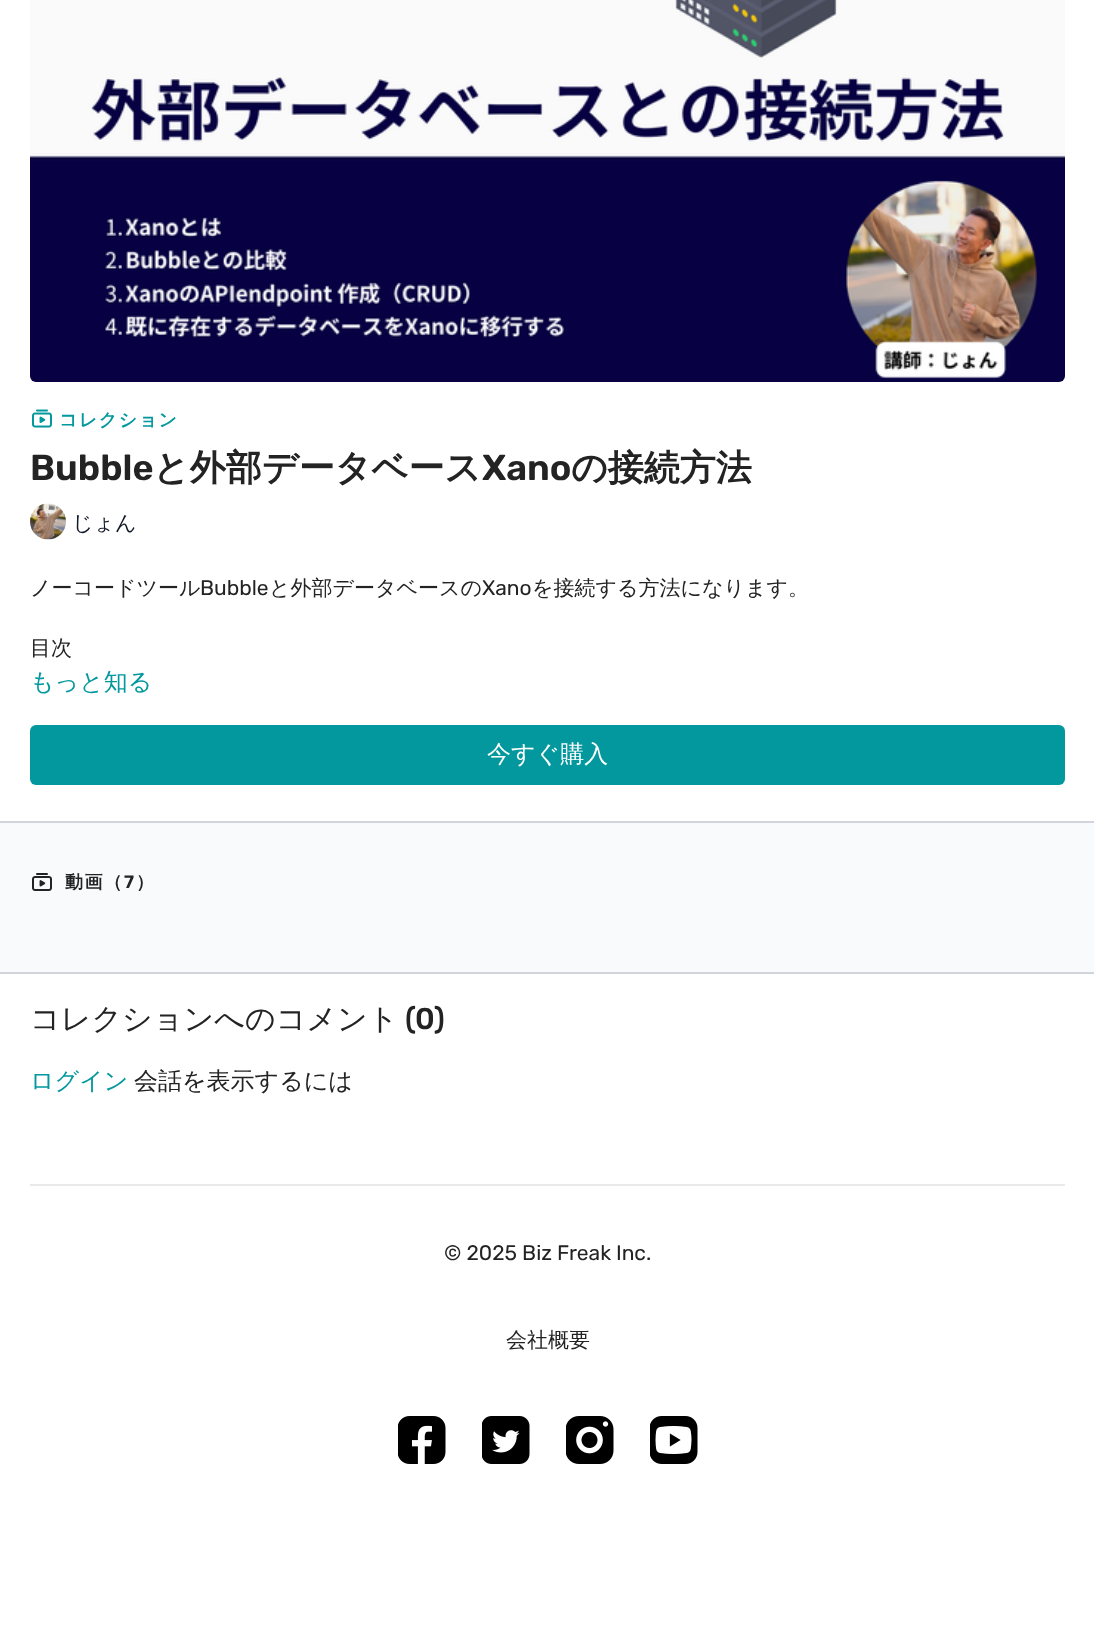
<svg xmlns="http://www.w3.org/2000/svg" xmlns:xlink="http://www.w3.org/1999/xlink" width="1094" height="1643" viewBox="0 0 1094 1643">
<style>
.cls-1{font:bold 18px WenQuanYi Zen Hei;letter-spacing:1.5px;fill:#03989e}
.cls-2{font:600 36px Rubik;fill:#232323}
.cls-3{font:bold 36px WenQuanYi Zen Hei;fill:#232323}
.cls-4{font:500 21px WenQuanYi Zen Hei;fill:#111827}
.cls-5{font:500 21px WenQuanYi Zen Hei;fill:#232323}
.cls-6{font:21px Rubik;fill:#232323}
.cls-7{font:500 24px WenQuanYi Zen Hei;fill:#03989e}
.cls-8{font:500 24px WenQuanYi Zen Hei;fill:#ffffff}
.cls-9{font:bold 18px WenQuanYi Zen Hei;letter-spacing:1.5px;fill:#232323}
.cls-10{font:600 18px Rubik;letter-spacing:1.5px;fill:#232323}
.cls-11{font:500 30px WenQuanYi Zen Hei;fill:#232323}
.cls-12{font:500 30px Rubik;fill:#232323}
.cls-13{font:500 24px WenQuanYi Zen Hei;fill:#232323}
</style>
<rect width="100%" height="100%" fill="#ffffff"/>
<image xlink:href="image0.png" x="30" y="0" width="1035" height="382"/>
<image xlink:href="image1.png" x="32" y="409" width="20" height="19"/>
<image xlink:href="image2.png" x="30" y="503" width="36" height="37"/>
<rect fill="#03989e" x="30" y="725" width="1035" height="60" rx="6"/>
<rect fill="#f9fafb" x="0" y="823" width="1094" height="149"/>
<rect fill="#d1d5db" x="0" y="821" width="1094" height="2"/>
<rect fill="#d1d5db" x="0" y="972" width="1094" height="2"/>
<image xlink:href="image3.png" x="32" y="873" width="20" height="18"/>
<rect fill="#e9e9e9" x="30" y="1184" width="1035" height="2"/>
<image xlink:href="image4.png" x="398" y="1416" width="48" height="48"/>
<image xlink:href="image5.png" x="482" y="1416" width="48" height="48"/>
<image xlink:href="image6.png" x="566" y="1416" width="48" height="48"/>
<image xlink:href="image7.png" x="650" y="1416" width="48" height="48"/>
<text class="cls-1" x="59" y="426">コレクション</text>
<text class="cls-2" x="30" y="480">Bubble</text>
<text class="cls-3" x="153" y="480">と外部データベース</text>
<text class="cls-2" x="482" y="480">Xano</text>
<text class="cls-3" x="571" y="480">の接続方法</text>
<text class="cls-4" x="72" y="530">じょん</text>
<text class="cls-5" x="30" y="595">ノーコードツール</text>
<text class="cls-6" x="200" y="595">Bubble</text>
<text class="cls-5" x="269" y="595">と外部データベースの</text>
<text class="cls-6" x="482" y="595">Xano</text>
<text class="cls-5" x="532" y="595">を接続する方法になります。</text>
<text class="cls-5" x="30" y="655">目次</text>
<text class="cls-7" x="30" y="690">もっと知る</text>
<text class="cls-8" x="487" y="762">今すぐ購入</text>
<text class="cls-9" x="65" y="888">動画（</text>
<text class="cls-10" x="124" y="888">7</text>
<text class="cls-9" x="136" y="888">）</text>
<text class="cls-11" x="30" y="1029">コレクションへのコメント</text>
<text class="cls-12" x="405" y="1029">(</text>
<text class="cls-12" x="415" y="1029">0</text>
<text class="cls-12" x="434" y="1029">)</text>
<text class="cls-7" x="30" y="1089">ログイン</text>
<text class="cls-13" x="134" y="1089">会話を表示するには</text>
<text class="cls-6" x="444" y="1260">©︎ 2025 Biz Freak Inc.</text>
<text class="cls-5" x="506" y="1347">会社概要</text>
</svg>
